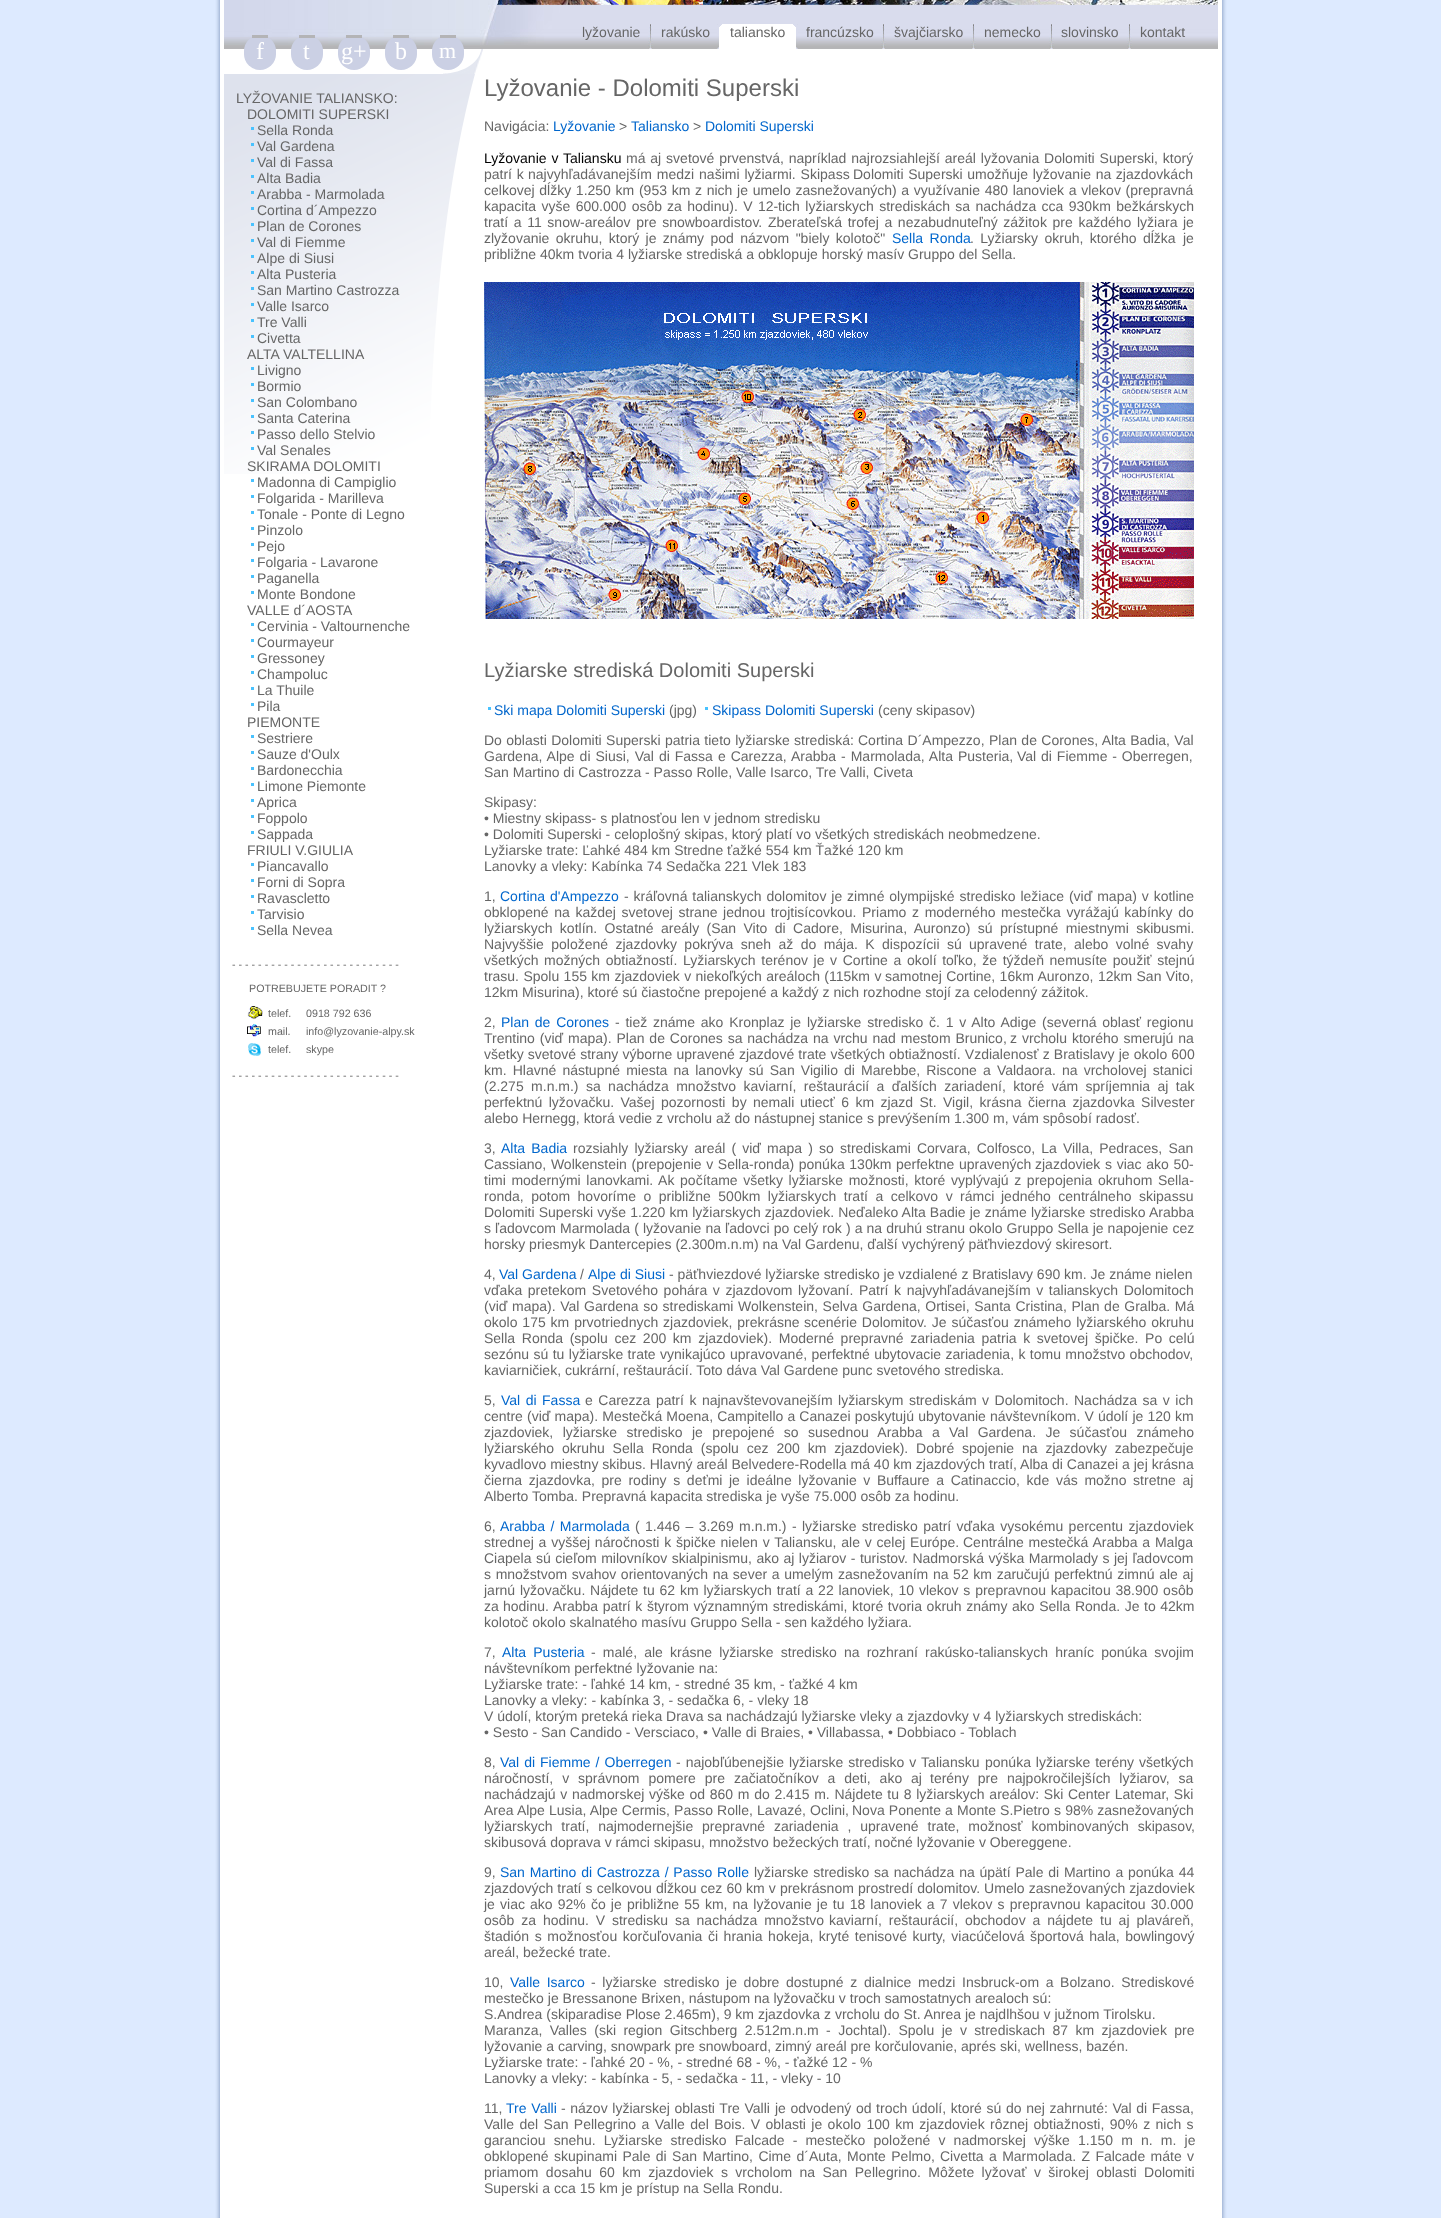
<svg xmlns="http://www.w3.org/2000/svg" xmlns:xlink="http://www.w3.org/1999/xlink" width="1441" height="2218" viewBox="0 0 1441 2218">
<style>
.cls-1{font:14px Liberation Sans;fill:#666666}
.cls-2{font:24px Liberation Serif;fill:#ffffff}
.cls-3{font:22px Liberation Serif;fill:#ffffff}
.cls-4{font:10.7px Liberation Sans;fill:#666666}
.cls-5{font:24px Liberation Sans;fill:#666666}
.cls-6{font:14px Liberation Sans;fill:#0066cc}
.cls-7{font:14px Liberation Sans;fill:#000000}
.cls-8{font:20px Liberation Sans;fill:#666666}
</style>
<rect width="100%" height="100%" fill="#ddeaff"/>
<rect fill="#ffffff" x="220" y="0" width="1002" height="2218"/>
<image xlink:href="image0.png" x="215" y="0" width="5" height="2218"/>
<image xlink:href="image1.png" x="1222" y="0" width="5" height="2218"/>
<image xlink:href="image2.png" x="224" y="0" width="994" height="49"/>
<image xlink:href="image3.png" x="648" y="24" width="5" height="25"/>
<rect fill="#ffffff" x="719" y="24" width="77" height="25"/>
<image xlink:href="image4.png" x="717" y="24" width="5" height="25"/>
<image xlink:href="image5.png" x="793" y="24" width="5" height="25"/>
<image xlink:href="image3.png" x="881" y="24" width="5" height="25"/>
<image xlink:href="image3.png" x="971" y="24" width="5" height="25"/>
<image xlink:href="image3.png" x="1049" y="24" width="5" height="25"/>
<image xlink:href="image3.png" x="1127" y="24" width="5" height="25"/>
<image xlink:href="image6.png" x="443" y="49" width="40" height="25"/>
<rect fill="#cbd0e4" x="244" y="35" width="32" height="35" rx="16"/>
<rect fill="#b4b4b6" x="252" y="35" width="16" height="3"/>
<rect fill="#cbd0e4" x="291" y="35" width="32" height="35" rx="16"/>
<rect fill="#b4b4b6" x="299" y="35" width="16" height="3"/>
<rect fill="#cbd0e4" x="338" y="35" width="32" height="35" rx="16"/>
<rect fill="#b4b4b6" x="346" y="35" width="16" height="3"/>
<rect fill="#cbd0e4" x="385" y="35" width="32" height="35" rx="16"/>
<rect fill="#b4b4b6" x="393" y="35" width="16" height="3"/>
<rect fill="#cbd0e4" x="432" y="35" width="32" height="35" rx="16"/>
<rect fill="#b4b4b6" x="440" y="35" width="16" height="3"/>
<image xlink:href="image7.png" x="224" y="74" width="251" height="400"/>
<rect fill="#48c2ff" x="251" y="127" width="3" height="3"/>
<rect fill="#48c2ff" x="251" y="143" width="3" height="3"/>
<rect fill="#48c2ff" x="251" y="159" width="3" height="3"/>
<rect fill="#48c2ff" x="251" y="175" width="3" height="3"/>
<rect fill="#48c2ff" x="251" y="191" width="3" height="3"/>
<rect fill="#48c2ff" x="251" y="207" width="3" height="3"/>
<rect fill="#48c2ff" x="251" y="223" width="3" height="3"/>
<rect fill="#48c2ff" x="251" y="239" width="3" height="3"/>
<rect fill="#48c2ff" x="251" y="255" width="3" height="3"/>
<rect fill="#48c2ff" x="251" y="271" width="3" height="3"/>
<rect fill="#48c2ff" x="251" y="287" width="3" height="3"/>
<rect fill="#48c2ff" x="251" y="303" width="3" height="3"/>
<rect fill="#48c2ff" x="251" y="319" width="3" height="3"/>
<rect fill="#48c2ff" x="251" y="335" width="3" height="3"/>
<rect fill="#48c2ff" x="251" y="367" width="3" height="3"/>
<rect fill="#48c2ff" x="251" y="383" width="3" height="3"/>
<rect fill="#48c2ff" x="251" y="399" width="3" height="3"/>
<rect fill="#48c2ff" x="251" y="415" width="3" height="3"/>
<rect fill="#48c2ff" x="251" y="431" width="3" height="3"/>
<rect fill="#48c2ff" x="251" y="447" width="3" height="3"/>
<rect fill="#48c2ff" x="251" y="479" width="3" height="3"/>
<rect fill="#48c2ff" x="251" y="495" width="3" height="3"/>
<rect fill="#48c2ff" x="251" y="511" width="3" height="3"/>
<rect fill="#48c2ff" x="251" y="527" width="3" height="3"/>
<rect fill="#48c2ff" x="251" y="543" width="3" height="3"/>
<rect fill="#48c2ff" x="251" y="559" width="3" height="3"/>
<rect fill="#48c2ff" x="251" y="575" width="3" height="3"/>
<rect fill="#48c2ff" x="251" y="591" width="3" height="3"/>
<rect fill="#48c2ff" x="251" y="623" width="3" height="3"/>
<rect fill="#48c2ff" x="251" y="639" width="3" height="3"/>
<rect fill="#48c2ff" x="251" y="655" width="3" height="3"/>
<rect fill="#48c2ff" x="251" y="671" width="3" height="3"/>
<rect fill="#48c2ff" x="251" y="687" width="3" height="3"/>
<rect fill="#48c2ff" x="251" y="703" width="3" height="3"/>
<rect fill="#48c2ff" x="251" y="735" width="3" height="3"/>
<rect fill="#48c2ff" x="251" y="751" width="3" height="3"/>
<rect fill="#48c2ff" x="251" y="767" width="3" height="3"/>
<rect fill="#48c2ff" x="251" y="783" width="3" height="3"/>
<rect fill="#48c2ff" x="251" y="799" width="3" height="3"/>
<rect fill="#48c2ff" x="251" y="815" width="3" height="3"/>
<rect fill="#48c2ff" x="251" y="831" width="3" height="3"/>
<rect fill="#48c2ff" x="251" y="863" width="3" height="3"/>
<rect fill="#48c2ff" x="251" y="879" width="3" height="3"/>
<rect fill="#48c2ff" x="251" y="895" width="3" height="3"/>
<rect fill="#48c2ff" x="251" y="911" width="3" height="3"/>
<rect fill="#48c2ff" x="251" y="927" width="3" height="3"/>
<image xlink:href="image8.png" x="247" y="1006" width="16" height="14"/>
<image xlink:href="image9.png" x="247" y="1024" width="14" height="13"/>
<image xlink:href="image10.png" x="248" y="1043" width="13" height="13"/>
<image xlink:href="image11.png" x="484" y="282" width="710" height="337"/>
<rect fill="#48c2ff" x="488" y="707" width="3" height="3"/>
<rect fill="#48c2ff" x="705" y="707" width="3" height="3"/>
<text class="cls-1" x="582" y="37">lyžovanie</text>
<text class="cls-1" x="661" y="37">rakúsko</text>
<text class="cls-1" x="730" y="37">taliansko</text>
<text class="cls-1" x="806" y="37">francúzsko</text>
<text class="cls-1" x="894" y="37">švajčiarsko</text>
<text class="cls-1" x="984" y="37">nemecko</text>
<text class="cls-1" x="1061" y="37">slovinsko</text>
<text class="cls-1" x="1140" y="37">kontakt</text>
<text class="cls-2" x="256" y="59">f</text>
<text class="cls-2" x="303" y="59">t</text>
<text class="cls-2" x="341" y="59">g+</text>
<text class="cls-2" x="395" y="59">b</text>
<text class="cls-3" x="439" y="58">m</text>
<text class="cls-1" x="236" y="103">LYŽOVANIE TALIANSKO:</text>
<text class="cls-1" x="247" y="119">DOLOMITI SUPERSKI</text>
<text class="cls-1"><tspan x="257" y="135">Sella Ronda</tspan><tspan x="257" y="151">Val Gardena</tspan><tspan x="257" y="167">Val di Fassa</tspan><tspan x="257" y="183">Alta Badia</tspan><tspan x="257" y="199">Arabba - Marmolada</tspan><tspan x="257" y="215">Cortina d´Ampezzo</tspan><tspan x="257" y="231">Plan de Corones</tspan><tspan x="257" y="247">Val di Fiemme</tspan><tspan x="257" y="263">Alpe di Siusi</tspan><tspan x="257" y="279">Alta Pusteria</tspan><tspan x="257" y="295">San Martino Castrozza</tspan><tspan x="257" y="311">Valle Isarco</tspan><tspan x="257" y="327">Tre Valli</tspan><tspan x="257" y="343">Civetta</tspan></text>
<text class="cls-1" x="247" y="359">ALTA VALTELLINA</text>
<text class="cls-1"><tspan x="257" y="375">Livigno</tspan><tspan x="257" y="391">Bormio</tspan><tspan x="257" y="407">San Colombano</tspan><tspan x="257" y="423">Santa Caterina</tspan><tspan x="257" y="439">Passo dello Stelvio</tspan><tspan x="257" y="455">Val Senales</tspan></text>
<text class="cls-1" x="247" y="471">SKIRAMA DOLOMITI</text>
<text class="cls-1"><tspan x="257" y="487">Madonna di Campiglio</tspan><tspan x="257" y="503">Folgarida - Marilleva</tspan><tspan x="257" y="519">Tonale - Ponte di Legno</tspan><tspan x="257" y="535">Pinzolo</tspan><tspan x="257" y="551">Pejo</tspan><tspan x="257" y="567">Folgaria - Lavarone</tspan><tspan x="257" y="583">Paganella</tspan><tspan x="257" y="599">Monte Bondone</tspan></text>
<text class="cls-1" x="247" y="615">VALLE d´AOSTA</text>
<text class="cls-1"><tspan x="257" y="631">Cervinia - Valtournenche</tspan><tspan x="257" y="647">Courmayeur</tspan><tspan x="257" y="663">Gressoney</tspan><tspan x="257" y="679">Champoluc</tspan><tspan x="257" y="695">La Thuile</tspan><tspan x="257" y="711">Pila</tspan></text>
<text class="cls-1" x="247" y="727">PIEMONTE</text>
<text class="cls-1"><tspan x="257" y="743">Sestriere</tspan><tspan x="257" y="759">Sauze d'Oulx</tspan><tspan x="257" y="775">Bardonecchia</tspan><tspan x="257" y="791">Limone Piemonte</tspan><tspan x="257" y="807">Aprica</tspan><tspan x="257" y="823">Foppolo</tspan><tspan x="257" y="839">Sappada</tspan></text>
<text class="cls-1" x="247" y="855">FRIULI V.GIULIA</text>
<text class="cls-1"><tspan x="257" y="871">Piancavallo</tspan><tspan x="257" y="887">Forni di Sopra</tspan><tspan x="257" y="903">Ravascletto</tspan><tspan x="257" y="919">Tarvisio</tspan><tspan x="257" y="935">Sella Nevea</tspan></text>
<text class="cls-4" x="232" y="968">- - - - - - - - - - - - - - - - - - - - - - - - - -</text>
<text class="cls-4" x="249" y="992">POTREBUJETE PORADIT ?</text>
<text class="cls-4" x="268" y="1017">telef.</text>
<text class="cls-4" x="306" y="1017">0918 792 636</text>
<text class="cls-4" x="268" y="1035">mail.</text>
<text class="cls-4" x="306" y="1035">info@lyzovanie-alpy.sk</text>
<text class="cls-4" x="268" y="1053">telef.</text>
<text class="cls-4" x="306" y="1053">skype</text>
<text class="cls-4" x="232" y="1079">- - - - - - - - - - - - - - - - - - - - - - - - - -</text>
<text class="cls-5" x="484" y="96">Lyžovanie - Dolomiti Superski</text>
<text class="cls-1" x="484" y="131">Navigácia:</text>
<text class="cls-6" x="553" y="131">Lyžovanie</text>
<text class="cls-1" x="619" y="131">&gt;</text>
<text class="cls-6" x="631" y="131">Taliansko</text>
<text class="cls-1" x="693" y="131">&gt;</text>
<text class="cls-6" x="705" y="131">Dolomiti Superski</text>
<text class="cls-7" x="484" y="163" word-spacing="1">Lyžovanie v Taliansku</text>
<text class="cls-1" x="626" y="163" word-spacing="1">má aj svetové prvenstvá, napríklad najrozsiahlejší areál lyžovania Dolomiti Superski, ktorý</text>
<text class="cls-1" x="484" y="179" word-spacing="0.75">patrí k</text>
<text class="cls-1" x="528" y="179" word-spacing="1">najvyhľadávanejším medzi našimi lyžiarmi. Skipass</text>
<text class="cls-1" x="853" y="179" word-spacing="0.75">Dolomiti Superski umožňuje lyžovanie na zjazdovkách</text>
<text class="cls-1"><tspan x="484" y="195" word-spacing="0.8">celkovej dĺžky 1.250 km (953 km z nich je umelo zasnežovaných) a využívanie 480 lanoviek a vlekov (prepravná</tspan><tspan x="484" y="211" word-spacing="1.5">kapacita vyše 600.000 osôb</tspan></text>
<text class="cls-1" x="667" y="211" word-spacing="1.5">za hodinu). V 12-tich lyžiarskych strediskách sa nachádza cca 930km bežkárskych</text>
<text class="cls-1" x="484" y="227" word-spacing="1.75">tratí a 11 snow-areálov pre snowboardistov. Zberateľská trofej a nezabudnuteľný zážitok pre každého lyžiara</text>
<text class="cls-1" x="1183" y="227">je</text>
<text class="cls-1" x="484" y="243" word-spacing="2.5">zlyžovanie okruhu, ktorý je známy pod názvom "biely kolotoč"</text>
<text class="cls-6" x="892" y="243" word-spacing="2.5">Sella Ronda</text>
<text class="cls-1" x="970" y="243" word-spacing="2.5">. Lyžiarsky okruh, ktorého dĺžka</text>
<text class="cls-1" x="1183" y="243">je</text>
<text class="cls-1" x="484" y="259">približne 40km tvoria 4 lyžiarske strediská a obklopuje horský masív Gruppo del Sella.</text>
<text class="cls-8" x="484" y="677">Lyžiarske strediská Dolomiti Superski</text>
<text class="cls-6" x="494" y="715">Ski mapa Dolomiti Superski</text>
<text class="cls-1" x="669" y="715">(jpg)</text>
<text class="cls-6" x="712" y="715">Skipass Dolomiti Superski</text>
<text class="cls-1" x="878" y="715">(ceny skipasov)</text>
<text class="cls-1" x="484" y="745" word-spacing="0.5">Do oblasti Dolomiti Superski patria tieto lyžiarske strediská:</text>
<text class="cls-1" x="858" y="745" word-spacing="0.5">Cortina D´Ampezzo, Plan de Corones, Alta Badia, Val</text>
<text class="cls-1" x="484" y="761" word-spacing="1.1">Gardena, Alpe di Siusi, Val di Fassa e Carezza, Arabba - Marmolada, Alta Pusteria,</text>
<text class="cls-1" x="1017" y="761" word-spacing="1">Val di Fiemme - Oberregen,</text>
<text class="cls-1" x="484" y="777">San Martino di Castrozza - Passo Rolle, Valle Isarco, Tre Valli, Civeta</text>
<text class="cls-1"><tspan x="484" y="807">Skipasy:</tspan><tspan x="484" y="823">• Miestny skipass- s platnosťou len v jednom stredisku</tspan><tspan x="484" y="839">• Dolomiti Superski - celoplošný skipas, ktorý platí vo všetkých strediskách neobmedzene.</tspan><tspan x="484" y="855">Lyžiarske trate: Ľahké 484 km Stredne ťažké 554 km Ťažké 120 km</tspan><tspan x="484" y="871">Lanovky a vleky: Kabínka 74 Sedačka 221 Vlek 183</tspan></text>
<text class="cls-1" x="484" y="901">1,</text>
<text class="cls-6" x="500" y="901" word-spacing="1">Cortina d'Ampezzo</text>
<text class="cls-1" x="624" y="901" word-spacing="1">- kráľovná talianskych dolomitov je zimné olympijské stredisko ležiace (viď mapa) v kotline</text>
<text class="cls-1" x="484" y="917" word-spacing="1.75">obklopené na každej svetovej strane jednou trojtisícovkou. Priamo z moderného</text>
<text class="cls-1" x="1001" y="917" word-spacing="1.75">mestečka vyrážajú kabínky do</text>
<text class="cls-1"><tspan x="484" y="933" word-spacing="3.5">lyžiarskych kotlín. Ostatné areály (San Vito di Cadore, Misurina, Auronzo) sú prístupné miestnymi skibusmi.</tspan><tspan x="484" y="949" word-spacing="3.5">Najvyššie položené zjazdovky pokrýva sneh až do mája. K dispozícii sú</tspan></text>
<text class="cls-1" x="969" y="949" word-spacing="3.5">upravené trate, alebo volné svahy</text>
<text class="cls-1"><tspan x="484" y="965" word-spacing="1.75">všetkých možných obtiažností. Lyžiarskych terénov je v Cortine a okolí toľko, že týždeň nemusíte použiť stejnú</tspan><tspan x="484" y="981" word-spacing="0.5">trasu. Spolu 155 km zjazdoviek v niekoľkých areáloch (115km v</tspan></text>
<text class="cls-1" x="885" y="981" word-spacing="0.5">samotnej Cortine, 16km Auronzo, 12km San Vito,</text>
<text class="cls-1" x="484" y="997">12km Misurina), ktoré sú čiastočne prepojené a každý z nich rozhodne stojí za celodenný zážitok.</text>
<text class="cls-1" x="484" y="1027">2,</text>
<text class="cls-6" x="501" y="1027" word-spacing="1.9">Plan de Corones</text>
<text class="cls-1" x="615" y="1027" word-spacing="1.9">- tiež známe ako Kronplaz je lyžiarske stredisko č. 1 v Alto Adige (severná oblasť regionu</text>
<text class="cls-1" x="484" y="1043" word-spacing="1">Trentino (viď mapa). Plan de Corones sa nachádza na vrchu nad mestom Brunico,</text>
<text class="cls-1" x="1010" y="1043" word-spacing="1">z vrcholu ktorého smerujú na</text>
<text class="cls-1"><tspan x="484" y="1059" word-spacing="0.25">všetky svetové strany výborne upravené zjazdové trate všetkých obtiažností. Vzdialenosť z Bratislavy je okolo 600</tspan><tspan x="484" y="1075" word-spacing="2.25">km. Hlavné nástupné miesta na lanovky sú San Vigilio di</tspan></text>
<text class="cls-1" x="861" y="1075" word-spacing="2.25">Marebbe, Riscone a Valdaora. na vrcholovej stanici</text>
<text class="cls-1"><tspan x="484" y="1091" word-spacing="3.5">(2.275 m.n.m.) sa nachádza množstvo kaviarní, reštaurácií a ďalších zariadení, ktoré vám spríjemnia aj tak</tspan><tspan x="484" y="1107" word-spacing="2.5">perfektnú lyžovačku. Vašej pozornosti by nemali</tspan></text>
<text class="cls-1" x="800" y="1107" word-spacing="2.5">utiecť 6 km zjazd St. Vigil, krásna čierna zjazdovka Silvester</text>
<text class="cls-1" x="484" y="1123">alebo Hernegg, ktorá vedie z vrcholu až do nástupnej stanice s prevýšením 1.300 m, vám spôsobí radosť.</text>
<text class="cls-1" x="484" y="1153">3,</text>
<text class="cls-6" x="501" y="1153" word-spacing="2.25">Alta Badia</text>
<text class="cls-1" x="573" y="1153" word-spacing="2.25">rozsiahly lyžiarsky areál ( viď mapa ) so strediskami Corvara, Colfosco, La Villa, Pedraces, San</text>
<text class="cls-1" x="484" y="1169" word-spacing="0.75">Cassiano, Wolkenstein (prepojenie v Sella-ronda) ponúka 130km perfektne upravených</text>
<text class="cls-1" x="1035" y="1169" word-spacing="0.75">zjazdoviek s viac ako 50-</text>
<text class="cls-1"><tspan x="484" y="1185" word-spacing="1.75">timi modernými lanovkami. Ak počítame všetky lyžiarske možnosti, ktoré vyplývajú z prepojenia okruhom Sella-</tspan><tspan x="484" y="1201" word-spacing="3.6">ronda, potom hovoríme o približne 500km lyžiarskych tratí a celkovo v rámci</tspan></text>
<text class="cls-1" x="1001" y="1201" word-spacing="3.6">jedného centrálneho skipassu</text>
<text class="cls-1"><tspan x="484" y="1217" word-spacing="0.25">Dolomiti Superski vyše 1.220 km lyžiarskych zjazdoviek. Neďaleko Alta Badie je známe lyžiarske stredisko Arabba</tspan><tspan x="484" y="1233" word-spacing="0.2">s ľadovcom Marmolada ( lyžovanie na ľadovci po celý rok ) a na druhú stranu okolo Gruppo Sella je napojenie cez</tspan><tspan x="484" y="1249">horsky priesmyk Dantercepies (2.300m.n.m) na Val Gardenu, ďalší vychýrený päťhviezdový skiresort.</tspan></text>
<text class="cls-1" x="484" y="1279">4,</text>
<text class="cls-6" x="499" y="1279">Val Gardena</text>
<text class="cls-1" x="580" y="1279">/</text>
<text class="cls-6" x="588" y="1279">Alpe di Siusi</text>
<text class="cls-1" x="669" y="1279">- päťhviezdové lyžiarske stredisko je vzdialené z Bratislavy 690 km. Je známe nielen</text>
<text class="cls-1" x="484" y="1295" word-spacing="1.75">vďaka pretekom Svetového pohára v zjazdovom lyžovaní. Patrí</text>
<text class="cls-1" x="894" y="1295" word-spacing="1.75">k najvyhľadávanejším v talianskych Dolomitoch</text>
<text class="cls-1"><tspan x="484" y="1311" word-spacing="0.75">(viď mapa). Val Gardena so strediskami Wolkenstein, Selva Gardena, Ortisei, Santa Cristina, Plan de Gralba. Má</tspan><tspan x="484" y="1327" word-spacing="1">okolo 175 km prvotriednych zjazdoviek, prekrásne</tspan></text>
<text class="cls-1" x="804" y="1327" word-spacing="1">scenérie Dolomitov. Je súčasťou známeho lyžiarského okruhu</text>
<text class="cls-1"><tspan x="484" y="1343" word-spacing="2.75">Sella Ronda (spolu cez 200 km zjazdoviek). Moderné prepravné zariadenia patria k svetovej špičke. Po celú</tspan><tspan x="484" y="1359" word-spacing="0.5">sezónu sú tu lyžiarske trate vynikajúco</tspan></text>
<text class="cls-1" x="730" y="1359" word-spacing="0.5">upravované, perfektné ubytovacie zariadenia, k tomu množstvo obchodov,</text>
<text class="cls-1" x="484" y="1375">kaviarničiek, cukrární, reštaurácií. Toto dáva Val Gardene punc svetového strediska.</text>
<text class="cls-1" x="484" y="1405">5,</text>
<text class="cls-6" x="501" y="1405" word-spacing="1.6">Val di Fassa</text>
<text class="cls-1" x="585" y="1405" word-spacing="1.6">e Carezza patrí k najnavštevovanejším lyžiarskym strediskám v Dolomitoch. Nachádza sa v ich</text>
<text class="cls-1"><tspan x="484" y="1421" word-spacing="0.25">centre (viď mapa). Mestečká Moena, Campitello a Canazei poskytujú ubytovanie návštevníkom. V údolí je 120 km</tspan><tspan x="484" y="1437" word-spacing="5.5">zjazdoviek, lyžiarske stredisko je prepojené so susednou Arabba a Val Gardena. Je súčasťou známeho</tspan><tspan x="484" y="1453" word-spacing="4">lyžiarského okruhu Sella Ronda (spolu cez 200 km zjazdoviek). Dobré</tspan></text>
<text class="cls-1" x="962" y="1453" word-spacing="4">spojenie na zjazdovky zabezpečuje</text>
<text class="cls-1"><tspan x="484" y="1469">kyvadlovo miestny skibus. Hlavný areál Belvedere-Rodella má 40 km zjazdových tratí, Alba di Canazei a jej krásna</tspan><tspan x="484" y="1485" word-spacing="2.75">čierna zjazdovka, pre rodiny s deťmi</tspan></text>
<text class="cls-1" x="729" y="1485" word-spacing="2.75">je ideálne lyžovanie v Buffaure a Catinaccio, kde</text>
<text class="cls-1" x="1056" y="1485" word-spacing="2.75">vás možno stretne aj</text>
<text class="cls-1" x="484" y="1501">Alberto Tomba. Prepravná kapacita strediska je vyše 75.000 osôb za hodinu.</text>
<text class="cls-1" x="484" y="1531">6,</text>
<text class="cls-6" x="500" y="1531" word-spacing="1.5">Arabba / Marmolada</text>
<text class="cls-1" x="635" y="1531" word-spacing="1.5">( 1.446 – 3.269 m.n.m.) - lyžiarske stredisko patrí vďaka vysokému percentu zjazdoviek</text>
<text class="cls-1" x="484" y="1547" word-spacing="0.9">strednej a vyššej náročnosti k špičke nielen v Taliansku, ale v celej Európe.</text>
<text class="cls-1" x="963" y="1547" word-spacing="0.9">Centrálne mestečká Arabba a Malga</text>
<text class="cls-1"><tspan x="484" y="1563" word-spacing="0.6">Ciapela sú cieľom milovníkov skialpinismu, ako aj lyžiarov - turistov. Nadmorská výška Marmolady s jej ľadovcom</tspan><tspan x="484" y="1579" word-spacing="0.75">s množstvom svahov orientovaných na sever a umelým</tspan></text>
<text class="cls-1" x="838" y="1579" word-spacing="0.75">zasnežovaním na 52 km zaručujú perfektnú zimnú ale aj</text>
<text class="cls-1"><tspan x="484" y="1595" word-spacing="0.9">jarnú lyžovačku. Nájdete tu 62 km lyžiarskych tratí a 22 lanoviek, 10 vlekov s prepravnou kapacitou 38.900 osôb</tspan><tspan x="484" y="1611" word-spacing="0.25">za hodinu.</tspan></text>
<text class="cls-1" x="553" y="1611" word-spacing="0.7">Arabba patrí k štyrom významným strediskámi, ktoré tvoria okruh známy ako Sella Ronda. Je to 42km</text>
<text class="cls-1" x="484" y="1627">kolotoč okolo skalnatého masívu Gruppo Sella - sen každého lyžiara.</text>
<text class="cls-1" x="484" y="1657">7,</text>
<text class="cls-6" x="502" y="1657" word-spacing="3.25">Alta Pusteria</text>
<text class="cls-1" x="591" y="1657" word-spacing="3.25">- malé, ale krásne lyžiarske stredisko na rozhraní rakúsko-talianskych hraníc ponúka svojim</text>
<text class="cls-1"><tspan x="484" y="1673">návštevníkom perfektné lyžovanie na:</tspan><tspan x="484" y="1689">Lyžiarske trate: - ľahké 14 km, - stredné 35 km, - ťažké 4 km</tspan><tspan x="484" y="1705">Lanovky a vleky: - kabínka 3, - sedačka 6, - vleky 18</tspan><tspan x="484" y="1721">V údolí, ktorým preteká rieka Drava sa nachádzajú lyžiarske vleky a zjazdovky v 4 lyžiarskych strediskách:</tspan><tspan x="484" y="1737">• Sesto - San Candido - Versciaco, • Valle di Braies, • Villabassa, • Dobbiaco - Toblach</tspan></text>
<text class="cls-1" x="484" y="1767">8,</text>
<text class="cls-6" x="500" y="1767" word-spacing="1.1">Val di Fiemme / Oberregen</text>
<text class="cls-1" x="676" y="1767" word-spacing="1.1">- najobľúbenejšie lyžiarske stredisko v Taliansku</text>
<text class="cls-1" x="985" y="1767" word-spacing="1">ponúka lyžiarske terény všetkých</text>
<text class="cls-1" x="484" y="1783" word-spacing="5">náročností, v správnom pomere pre začiatočníkov a deti, ako aj</text>
<text class="cls-1" x="930" y="1783" word-spacing="5">terény pre najpokročilejších lyžiarov, sa</text>
<text class="cls-1"><tspan x="484" y="1799" word-spacing="0.8">nachádzajú v nadmorskej výške od 860 m do 2.415 m. Nájdete tu 8 lyžiarskych areálov: Ski Center Latemar, Ski</tspan><tspan x="484" y="1815" word-spacing="0.2">Area Alpe Lusia, Alpe Cermis, Passo Rolle, Lavazé, Oclini,</tspan></text>
<text class="cls-1" x="852" y="1815" word-spacing="0.25">Nova Ponente a Monte S.Pietro s 98% zasnežovaných</text>
<text class="cls-1"><tspan x="484" y="1831" word-spacing="5">lyžiarskych tratí, najmodernejšie prepravné zariadenia , upravené trate, možnosť kombinovaných skipasov,</tspan><tspan x="484" y="1847">skibusová doprava v rámci skipasu, množstvo bežeckých tratí, nočné lyžovanie v Obereggene.</tspan></text>
<text class="cls-1" x="484" y="1877">9,</text>
<text class="cls-6" x="500" y="1877" word-spacing="0.9">San Martino di Castrozza / Passo Rolle</text>
<text class="cls-1" x="754" y="1877" word-spacing="0.9">lyžiarske stredisko sa nachádza na úpätí Pale di Martino a ponúka 44</text>
<text class="cls-1"><tspan x="484" y="1893" word-spacing="0.2">zjazdových tratí s celkovou dĺžkou cez 60 km v prekrásnom prostredí dolomitov. Umelo zasnežovaných zjazdoviek</tspan><tspan x="484" y="1909" word-spacing="1.25">je viac ako 92% čo je približne 55 km, na lyžovanie je tu 18 lanoviek a 7 vlekov s prepravnou kapacitou 30.000</tspan><tspan x="484" y="1925" word-spacing="3">osôb za hodinu. V stredisku sa nachádza množstvo</tspan></text>
<text class="cls-1" x="829" y="1925" word-spacing="3">kaviarní, reštaurácií, obchodov a nájdete tu aj plaváreň,</text>
<text class="cls-1"><tspan x="484" y="1941" word-spacing="1.7">štadión s možnosťou korčuľovania či hrania hokeja, kryté tenisové kurty, viacúčelová športová hala, bowlingový</tspan><tspan x="484" y="1957">areál, bežecké trate.</tspan></text>
<text class="cls-1" x="484" y="1987">10,</text>
<text class="cls-6" x="510" y="1987" word-spacing="2.75">Valle Isarco</text>
<text class="cls-1" x="591" y="1987" word-spacing="2.75">- lyžiarske stredisko je dobre dostupné z dialnice medzi Insbruck-om a Bolzano. Strediskové</text>
<text class="cls-1"><tspan x="484" y="2003">mestečko je Bressanone Brixen, nástupom na lyžovačku v troch samostatnych arealoch sú:</tspan><tspan x="484" y="2019">S.Andrea (skiparadise Plose 2.465m), 9 km zjazdovka z vrcholu do St. Anrea je najdlhšou v južnom Tirolsku.</tspan><tspan x="484" y="2035" word-spacing="3.5">Maranza, Valles (ski region Gitschberg 2.512m.n.m - Jochtal). Spolu je v strediskach 87 km zjazdoviek pre</tspan><tspan x="484" y="2051">lyžovanie a carving, snowpark pre snowboard, zimný areál pre korčulovanie, aprés ski, wellness, bazén.</tspan><tspan x="484" y="2067">Lyžiarske trate: - ľahké 20 - %, - stredné 68 - %, - ťažké 12 - %</tspan><tspan x="484" y="2083">Lanovky a vleky: - kabínka - 5, - sedačka - 11, - vleky - 10</tspan></text>
<text class="cls-1" x="484" y="2113">11,</text>
<text class="cls-6" x="506" y="2113" word-spacing="1">Tre Valli</text>
<text class="cls-1" x="561" y="2113" word-spacing="0.75">- názov lyžiarskej oblasti Tre Valli</text>
<text class="cls-1" x="775" y="2113" word-spacing="0.75">je odvodený od troch údolí, ktoré sú do nej zahrnuté: Val di Fassa,</text>
<text class="cls-1" x="484" y="2129" word-spacing="1.5">Valle del San Pellegrino a Valle del Bois. V oblasti je okolo 100 km zjazdoviek</text>
<text class="cls-1" x="990" y="2129" word-spacing="1.5">rôznej obtiažnosti, 90% z nich s</text>
<text class="cls-1"><tspan x="484" y="2145" word-spacing="4.25">garanciou snehu. Lyžiarske stredisko Falcade - mestečko položené v nadmorskej výške 1.150 m n. m. je</tspan><tspan x="484" y="2161" word-spacing="1.5">obklopené skupinami Pale di San Martino, Cime d´Auta, Monte Pelmo,</tspan></text>
<text class="cls-1" x="940" y="2161" word-spacing="1.5">Civetta a Marmolada. Z Falcade máte v</text>
<text class="cls-1"><tspan x="484" y="2177" word-spacing="3.5">priamom dosahu 60 km zjazdoviek s vrcholom na San Pellegrino. Môžete lyžovať v širokej oblasti Dolomiti</tspan><tspan x="484" y="2193">Superski a cca 15 km je prístup na Sella Rondu.</tspan></text>
</svg>
